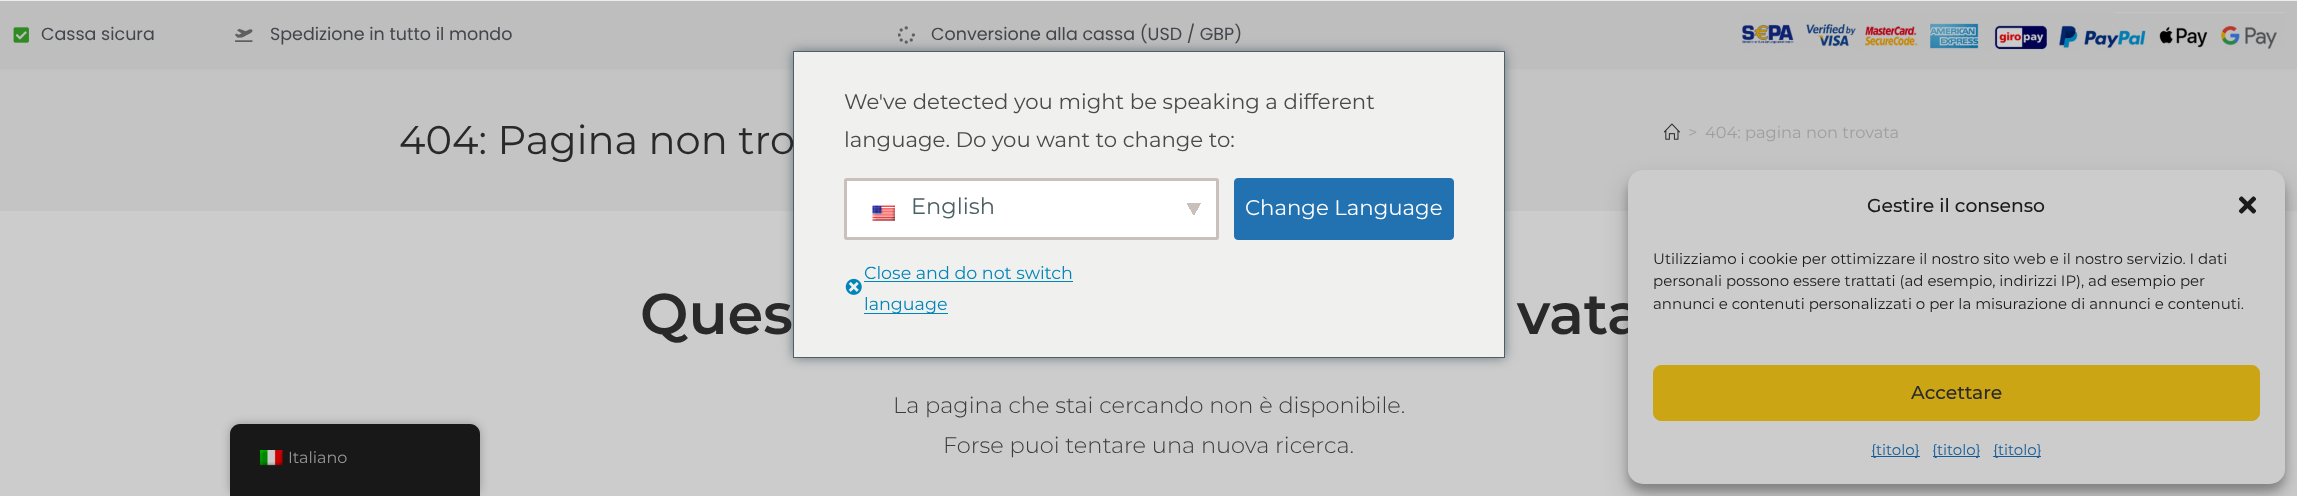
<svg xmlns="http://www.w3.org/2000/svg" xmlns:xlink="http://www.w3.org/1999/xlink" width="2297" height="496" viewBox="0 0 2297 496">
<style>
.cls-1{font:17.5px Poppins;fill:#43474c}
.cls-2{font:40px Montserrat;fill:#292929}
.cls-3{font:16.25px Montserrat;fill:#9e9e9e}
.cls-4{font:600 57.5px Montserrat;fill:#292929}
.cls-5{font:300 22.5px Montserrat;fill:#3b3b3b}
.cls-6{font:16px Montserrat;fill:#979797}
.cls-7{font:21.25px Montserrat;fill:#4a4a4a}
.cls-8{font:22.5px Montserrat;fill:#4c6066}
.cls-9{font:21.25px Montserrat;fill:#ffffff}
.cls-10{font:17.5px Montserrat;fill:#0085ba}
.cls-11{font:500 18.75px Montserrat;fill:#1b1b1b}
.cls-12{font:15px Montserrat;fill:#1b1b1b}
.cls-13{font:500 18.75px Montserrat;fill:#292929}
.cls-14{font:15px Montserrat;fill:#185c98}
</style>
<defs>
<linearGradient id="g1" gradientUnits="userSpaceOnUse" x1="1191" y1="206" x2="1204" y2="213"><stop offset="0.5" stop-color="#c9c0bb"/><stop offset="0.5" stop-color="#ffffff"/></linearGradient>
<linearGradient id="g2" gradientUnits="userSpaceOnUse" x1="1184" y1="213" x2="1196" y2="206"><stop offset="0.5" stop-color="#ffffff"/><stop offset="0.5" stop-color="#c9c0bb"/></linearGradient>
</defs>
<rect width="100%" height="100%" fill="#cccccc"/>
<rect fill="#c1c1c1" x="0" y="69" width="2297" height="1"/>
<rect fill="#ededed" x="0" y="0" width="2297" height="1"/>
<rect fill="#bebebe" x="0" y="1" width="2297" height="68"/>
<image xlink:href="image0.png" x="13" y="27" width="16" height="16"/>
<image xlink:href="image1.png" x="235" y="28" width="18" height="14"/>
<image xlink:href="image2.png" x="898" y="26" width="17" height="18"/>
<image xlink:href="image3.png" x="1742" y="12" width="543" height="38"/>
<rect fill="#c4c4c4" x="0" y="70" width="2297" height="141"/>
<image xlink:href="image4.png" x="1664" y="123" width="16" height="17"/>
<rect fill="#000000" fill-opacity="0.25" filter="blur(5px)" x="230" y="424" width="250" height="72" rx="10"/>
<path fill="#181818" d="M240 424H470C475.5 424 480 428.5 480 434V496H230V434C230 428.5 234.5 424 240 424Z"/>
<image xlink:href="image5.png" x="259" y="450" width="24" height="16"/>
<rect fill="#6c7781" filter="blur(6px)" x="793" y="51" width="712" height="307"/>
<rect fill="#f0f0ee" stroke="#4c6066" x="793.5" y="51.5" width="711" height="306"/>
<rect fill="#ffffff" x="844" y="178" width="375" height="62" rx="2.5"/>
<rect fill="url(#g1)" x="1194" y="203" width="7" height="15"/>
<rect fill="url(#g2)" x="1186" y="203" width="8" height="15"/>
<rect fill="none" stroke="#c9c0bb" stroke-width="3" x="845.5" y="179.5" width="372" height="59" rx="1"/>
<image xlink:href="image6.png" x="872" y="205" width="23" height="16"/>
<rect fill="#2271b1" stroke="#2271b1" x="1234.5" y="178.5" width="219" height="61" rx="3.5"/>
<image xlink:href="image7.png" x="845" y="278" width="17" height="17"/>
<rect fill="#0085ba" x="864" y="281" width="209" height="1"/>
<rect fill="#0085ba" x="864" y="313" width="84" height="1"/>
<rect fill="#000000" fill-opacity="0.23" filter="blur(4px)" x="1628" y="178" width="657" height="313" rx="15"/>
<rect fill="#000000" fill-opacity="0.19" filter="blur(12.5px)" x="1628" y="183" width="657" height="313" rx="15"/>
<text class="cls-1" x="41" y="40">Cassa sicura</text>
<text class="cls-1" x="270" y="40">Spedizione in tutto il mondo</text>
<text class="cls-1" x="931" y="40">Conversione alla cassa (USD / GBP)</text>
<text class="cls-2" x="399" y="154">404: Pagina non tro</text>
<text class="cls-3" x="1688" y="138">&gt;</text>
<text class="cls-3" x="1705" y="138">404: pagina non trovata</text>
<text class="cls-4" x="640" y="334">Ques</text>
<text class="cls-4" x="1517" y="334">vata</text>
<text class="cls-5" x="893" y="413">La pagina che stai cercando non è disponibile.</text>
<text class="cls-5" x="943" y="453">Forse puoi tentare una nuova ricerca.</text>
<text class="cls-6" x="288" y="463">Italiano</text>
<text class="cls-7"><tspan x="844" y="109">We've detected you might be speaking a different</tspan><tspan x="844" y="147">language. Do you want to change to:</tspan></text>
<text class="cls-8" x="911" y="214">English</text>
<text class="cls-9" x="1245" y="215">Change Language</text>
<text class="cls-10"><tspan x="864" y="279">Close and do not switch</tspan><tspan x="864" y="310">language</tspan></text>
<rect fill="#cccccc" x="1628" y="170" width="657" height="314" rx="15"/>
<text class="cls-11" x="1867" y="212">Gestire il consenso</text>
<image xlink:href="image8.png" x="2238" y="196" width="19" height="18"/>
<text class="cls-12"><tspan x="1653" y="264">Utilizziamo i cookie per ottimizzare il nostro sito web e il nostro servizio. I dati</tspan><tspan x="1653" y="286">personali possono essere trattati (ad esempio, indirizzi IP), ad esempio per</tspan><tspan x="1653" y="309">annunci e contenuti personalizzati o per la misurazione di annunci e contenuti.</tspan></text>
<rect fill="#cca515" stroke="#cca515" x="1653.5" y="365.5" width="606" height="55" rx="7.5"/>
<text class="cls-13" x="1911" y="399">Accettare</text>
<rect fill="#185c98" x="1871" y="456" width="49" height="1"/>
<text class="cls-14" x="1871" y="455">{titolo}</text>
<rect fill="#185c98" x="1933" y="456" width="47" height="1"/>
<text class="cls-14" x="1932" y="455">{titolo}</text>
<rect fill="#185c98" x="1993" y="456" width="48" height="1"/>
<text class="cls-14" x="1993" y="455">{titolo}</text>
</svg>
